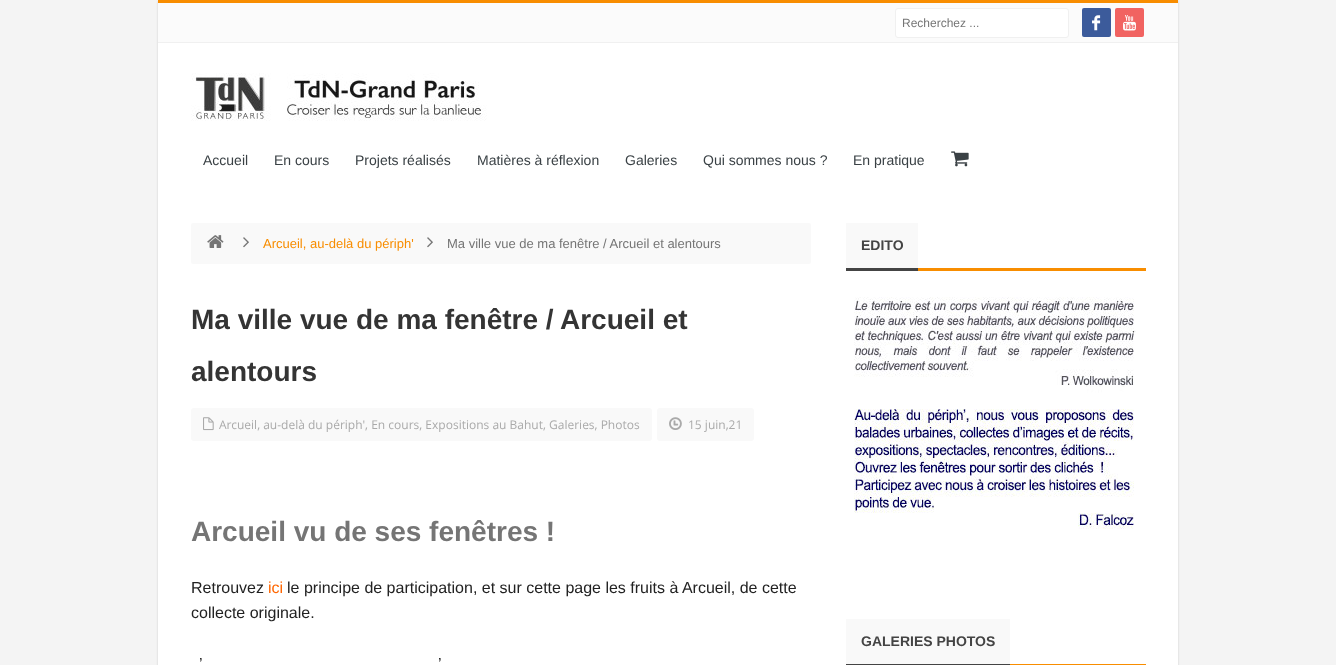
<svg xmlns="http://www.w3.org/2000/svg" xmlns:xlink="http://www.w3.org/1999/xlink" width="1336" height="665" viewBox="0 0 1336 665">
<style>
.cls-1{font:12px Liberation Sans;fill:#757575}
.cls-2{font:14px Liberation Sans;fill:#3a4145}
.cls-3{font:13px Liberation Sans;fill:#f88d00}
.cls-4{font:13px Liberation Sans;fill:#757575}
.cls-5{font:bold 28px Liberation Sans;fill:#343434}
.cls-6{font:12px Open Sans;fill:#aaaaaa}
.cls-7{font:bold 28px Liberation Sans;fill:#757575}
.cls-8{font:16px Liberation Sans;fill:#222222}
.cls-9{font:16px Liberation Sans;fill:#ff6600}
.cls-10{font:bold 14px Liberation Sans;fill:#444444}
</style>
<rect width="100%" height="100%" fill="#f4f4f4"/>
<rect fill="#000000" fill-opacity="0.15" filter="blur(1px)" x="158" y="1" width="1020" height="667"/>
<rect fill="#ffffff" x="158" y="43" width="1020" height="622"/>
<rect fill="#fbfbfb" x="158" y="3" width="1020" height="39"/>
<rect fill="#f88d00" x="158" y="0" width="1020" height="3"/>
<rect fill="#f0f0f0" x="158" y="42" width="1020" height="1"/>
<rect fill="#ffffff" stroke="#f0f0f0" x="895.5" y="8.5" width="173" height="29" rx="2.5"/>
<rect fill="#3c5b9b" x="1082" y="8" width="29" height="29" rx="2"/>
<image xlink:href="image0.png" x="1092" y="15" width="9" height="16"/>
<rect fill="#f16361" x="1115" y="8" width="29" height="29" rx="2"/>
<image xlink:href="image1.png" x="1123" y="15" width="13" height="16"/>
<image xlink:href="image2.png" x="191" y="73" width="296" height="48"/>
<image xlink:href="image3.png" x="951" y="151" width="18" height="16"/>
<rect fill="#f9f9f9" x="191" y="223" width="620" height="41" rx="2"/>
<image xlink:href="image4.png" x="207" y="235" width="17" height="13"/>
<image xlink:href="image5.png" x="243" y="237" width="6" height="11"/>
<image xlink:href="image5.png" x="427" y="237" width="6" height="11"/>
<rect fill="#f9f9f9" x="191" y="408" width="461" height="33" rx="3"/>
<image xlink:href="image6.png" x="203" y="417" width="11" height="14"/>
<rect fill="#f9f9f9" x="657" y="408" width="97" height="33" rx="3"/>
<image xlink:href="image7.png" x="669" y="417" width="13" height="13"/>
<rect fill="#f88d00" x="918" y="268" width="228" height="3"/>
<rect fill="#f9f9f9" x="846" y="223" width="72" height="45"/>
<rect fill="#444444" x="846" y="268" width="72" height="3"/>
<image xlink:href="image8.png" x="854" y="297" width="282" height="232"/>
<rect fill="#f88d00" x="1010" y="664" width="136" height="1"/>
<rect fill="#f9f9f9" x="846" y="619" width="164" height="45"/>
<rect fill="#444444" x="846" y="664" width="164" height="1"/>
<text class="cls-1" x="902" y="27">Recherchez ...</text>
<text class="cls-2" x="203" y="165">Accueil</text>
<text class="cls-2" x="274" y="165">En cours</text>
<text class="cls-2" x="355" y="165">Projets réalisés</text>
<text class="cls-2" x="477" y="165">Matières à réflexion</text>
<text class="cls-2" x="625" y="165">Galeries</text>
<text class="cls-2" x="703" y="165">Qui sommes nous ?</text>
<text class="cls-2" x="853" y="165">En pratique</text>
<text class="cls-3" x="263" y="248">Arcueil, au-delà du périph'</text>
<text class="cls-4" x="447" y="248">Ma ville vue de ma fenêtre / Arcueil et alentours</text>
<text class="cls-5" x="191" y="329">Ma ville vue de ma fenêtre /</text>
<text class="cls-5" x="560" y="329">Arcueil et</text>
<text class="cls-5" x="191" y="381">alentours</text>
<text class="cls-6" x="219" y="429">Arcueil, au-delà du périph', En cours, Expositions au Bahut, Galeries, Photos</text>
<text class="cls-6" x="688" y="429">15 juin,21</text>
<text class="cls-7" x="191" y="541">Arcueil vu de ses fenêtres !</text>
<text class="cls-8" x="191" y="593">Retrouvez</text>
<text class="cls-9" x="268" y="593">ici</text>
<text class="cls-8" x="287" y="593">le principe de participation, et sur cette page les fruits à Arcueil, de cette</text>
<text class="cls-8" x="191" y="618">collecte originale.</text>
<text class="cls-8" x="199" y="669">’</text>
<text class="cls-8" x="438" y="669">’</text>
<text class="cls-10" x="861" y="250">EDITO</text>
<text class="cls-10" x="861" y="646">GALERIES PHOTOS</text>
</svg>
